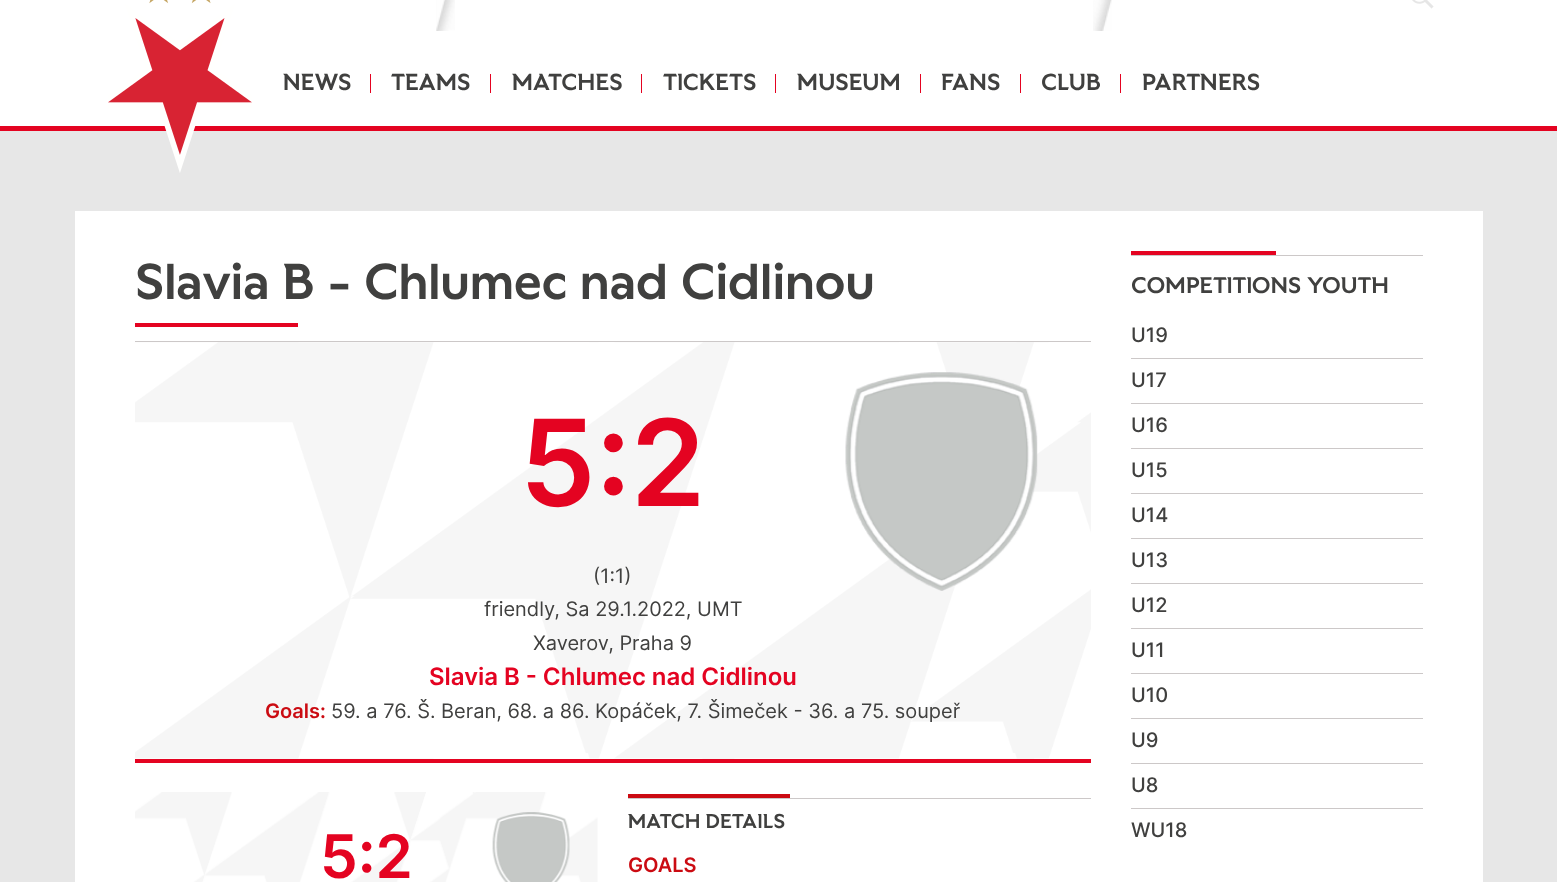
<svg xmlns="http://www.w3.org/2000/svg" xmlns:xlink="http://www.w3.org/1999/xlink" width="1557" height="882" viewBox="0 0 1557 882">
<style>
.cls-1{font:600 23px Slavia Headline;fill:#40403f}
.cls-2{font:600 50px Slavia Headline;fill:#40403f}
.cls-3{font:600 120px Inter;fill:#e40321}
.cls-4{font:20px Inter;fill:#40403f}
.cls-5{font:600 24px Inter;fill:#e40321}
.cls-6{font:600 20px Inter;fill:#cb0b12}
.cls-7{font:600 60px Inter;fill:#e40321}
.cls-8{font:600 20px Slavia Headline;fill:#40403f}
.cls-9{font:600 22.5px Slavia Headline;fill:#40403f}
.cls-10{font:500 20px Inter;fill:#40403f}
</style>
<rect width="100%" height="100%" fill="#e7e7e7"/>
<rect fill="#ffffff" x="0" y="0" width="1557" height="126"/>
<image xlink:href="image0.png" x="436" y="0" width="19" height="31"/>
<image xlink:href="image1.png" x="1093" y="0" width="19" height="31"/>
<image xlink:href="image2.png" x="1412" y="0" width="22" height="9"/>
<rect fill="#e40321" x="0" y="126" width="1557" height="5"/>
<image xlink:href="image3.png" x="108" y="0" width="144" height="173"/>
<rect fill="#e40321" x="370" y="74" width="1" height="19"/>
<rect fill="#e40321" x="490" y="74" width="1" height="19"/>
<rect fill="#e40321" x="641" y="74" width="1" height="19"/>
<rect fill="#e40321" x="775" y="74" width="1" height="19"/>
<rect fill="#e40321" x="920" y="74" width="1" height="19"/>
<rect fill="#e40321" x="1020" y="74" width="1" height="19"/>
<rect fill="#e40321" x="1120" y="74" width="1" height="19"/>
<rect fill="#ffffff" x="75" y="211" width="1408" height="671"/>
<rect fill="#e40321" x="135" y="323" width="163" height="4"/>
<image xlink:href="image4.png" x="135" y="342" width="956" height="417"/>
<rect fill="#ccc8c8" x="135" y="341" width="956" height="1"/>
<rect fill="#e40321" x="135" y="759" width="956" height="4"/>
<image xlink:href="image5.png" x="845" y="372" width="193" height="219"/>
<image xlink:href="image6.png" x="135" y="792" width="463" height="90"/>
<image xlink:href="image7.png" x="492" y="812" width="78" height="70"/>
<rect fill="#ccc8c8" x="628" y="798" width="463" height="1"/>
<rect fill="#cb0b12" x="628" y="794" width="162" height="4"/>
<rect fill="#ccc8c8" x="1131" y="255" width="292" height="1"/>
<rect fill="#e40321" x="1131" y="251" width="145" height="4"/>
<rect fill="#ccc8c8" x="1131" y="358" width="292" height="1"/>
<rect fill="#ccc8c8" x="1131" y="403" width="292" height="1"/>
<rect fill="#ccc8c8" x="1131" y="448" width="292" height="1"/>
<rect fill="#ccc8c8" x="1131" y="493" width="292" height="1"/>
<rect fill="#ccc8c8" x="1131" y="538" width="292" height="1"/>
<rect fill="#ccc8c8" x="1131" y="583" width="292" height="1"/>
<rect fill="#ccc8c8" x="1131" y="628" width="292" height="1"/>
<rect fill="#ccc8c8" x="1131" y="673" width="292" height="1"/>
<rect fill="#ccc8c8" x="1131" y="718" width="292" height="1"/>
<rect fill="#ccc8c8" x="1131" y="763" width="292" height="1"/>
<rect fill="#ccc8c8" x="1131" y="808" width="292" height="1"/>
<text class="cls-1" x="283" y="90">NEWS</text>
<text class="cls-1" x="391" y="90">TEAMS</text>
<text class="cls-1" x="512" y="90">MATCHES</text>
<text class="cls-1" x="663" y="90">TICKETS</text>
<text class="cls-1" x="797" y="90">MUSEUM</text>
<text class="cls-1" x="941" y="90">FANS</text>
<text class="cls-1" x="1041" y="90">CLUB</text>
<text class="cls-1" x="1142" y="90">PARTNERS</text>
<text class="cls-2" x="135" y="299">Slavia B - Chlumec nad Cidlinou</text>
<text class="cls-3" x="520" y="506">5:2</text>
<text class="cls-4" x="593" y="583">(1:1)</text>
<text class="cls-4" x="484" y="616">friendly, Sa 29.1.2022, UMT</text>
<text class="cls-4" x="533" y="650">Xaverov, Praha 9</text>
<text class="cls-5" x="429" y="685">Slavia B - Chlumec nad Cidlinou</text>
<text class="cls-6" x="265" y="718">Goals:</text>
<text class="cls-4" x="331" y="718">59. a 76. Š. Beran, 68. a 86. Kopáček, 7. Šimeček - 36. a 75. soupeř</text>
<text class="cls-7" x="320" y="878">5:2</text>
<text class="cls-8" x="628" y="828">MATCH DETAILS</text>
<text class="cls-6" x="628" y="872">GOALS</text>
<text class="cls-9" x="1131" y="293">COMPETITIONS YOUTH</text>
<text class="cls-10" x="1131" y="342">U19</text>
<text class="cls-10" x="1131" y="387">U17</text>
<text class="cls-10" x="1131" y="432">U16</text>
<text class="cls-10" x="1131" y="477">U15</text>
<text class="cls-10" x="1131" y="522">U14</text>
<text class="cls-10" x="1131" y="567">U13</text>
<text class="cls-10" x="1131" y="612">U12</text>
<text class="cls-10" x="1131" y="657">U11</text>
<text class="cls-10" x="1131" y="702">U10</text>
<text class="cls-10" x="1131" y="747">U9</text>
<text class="cls-10" x="1131" y="792">U8</text>
<text class="cls-10" x="1131" y="837">WU18</text>
</svg>
